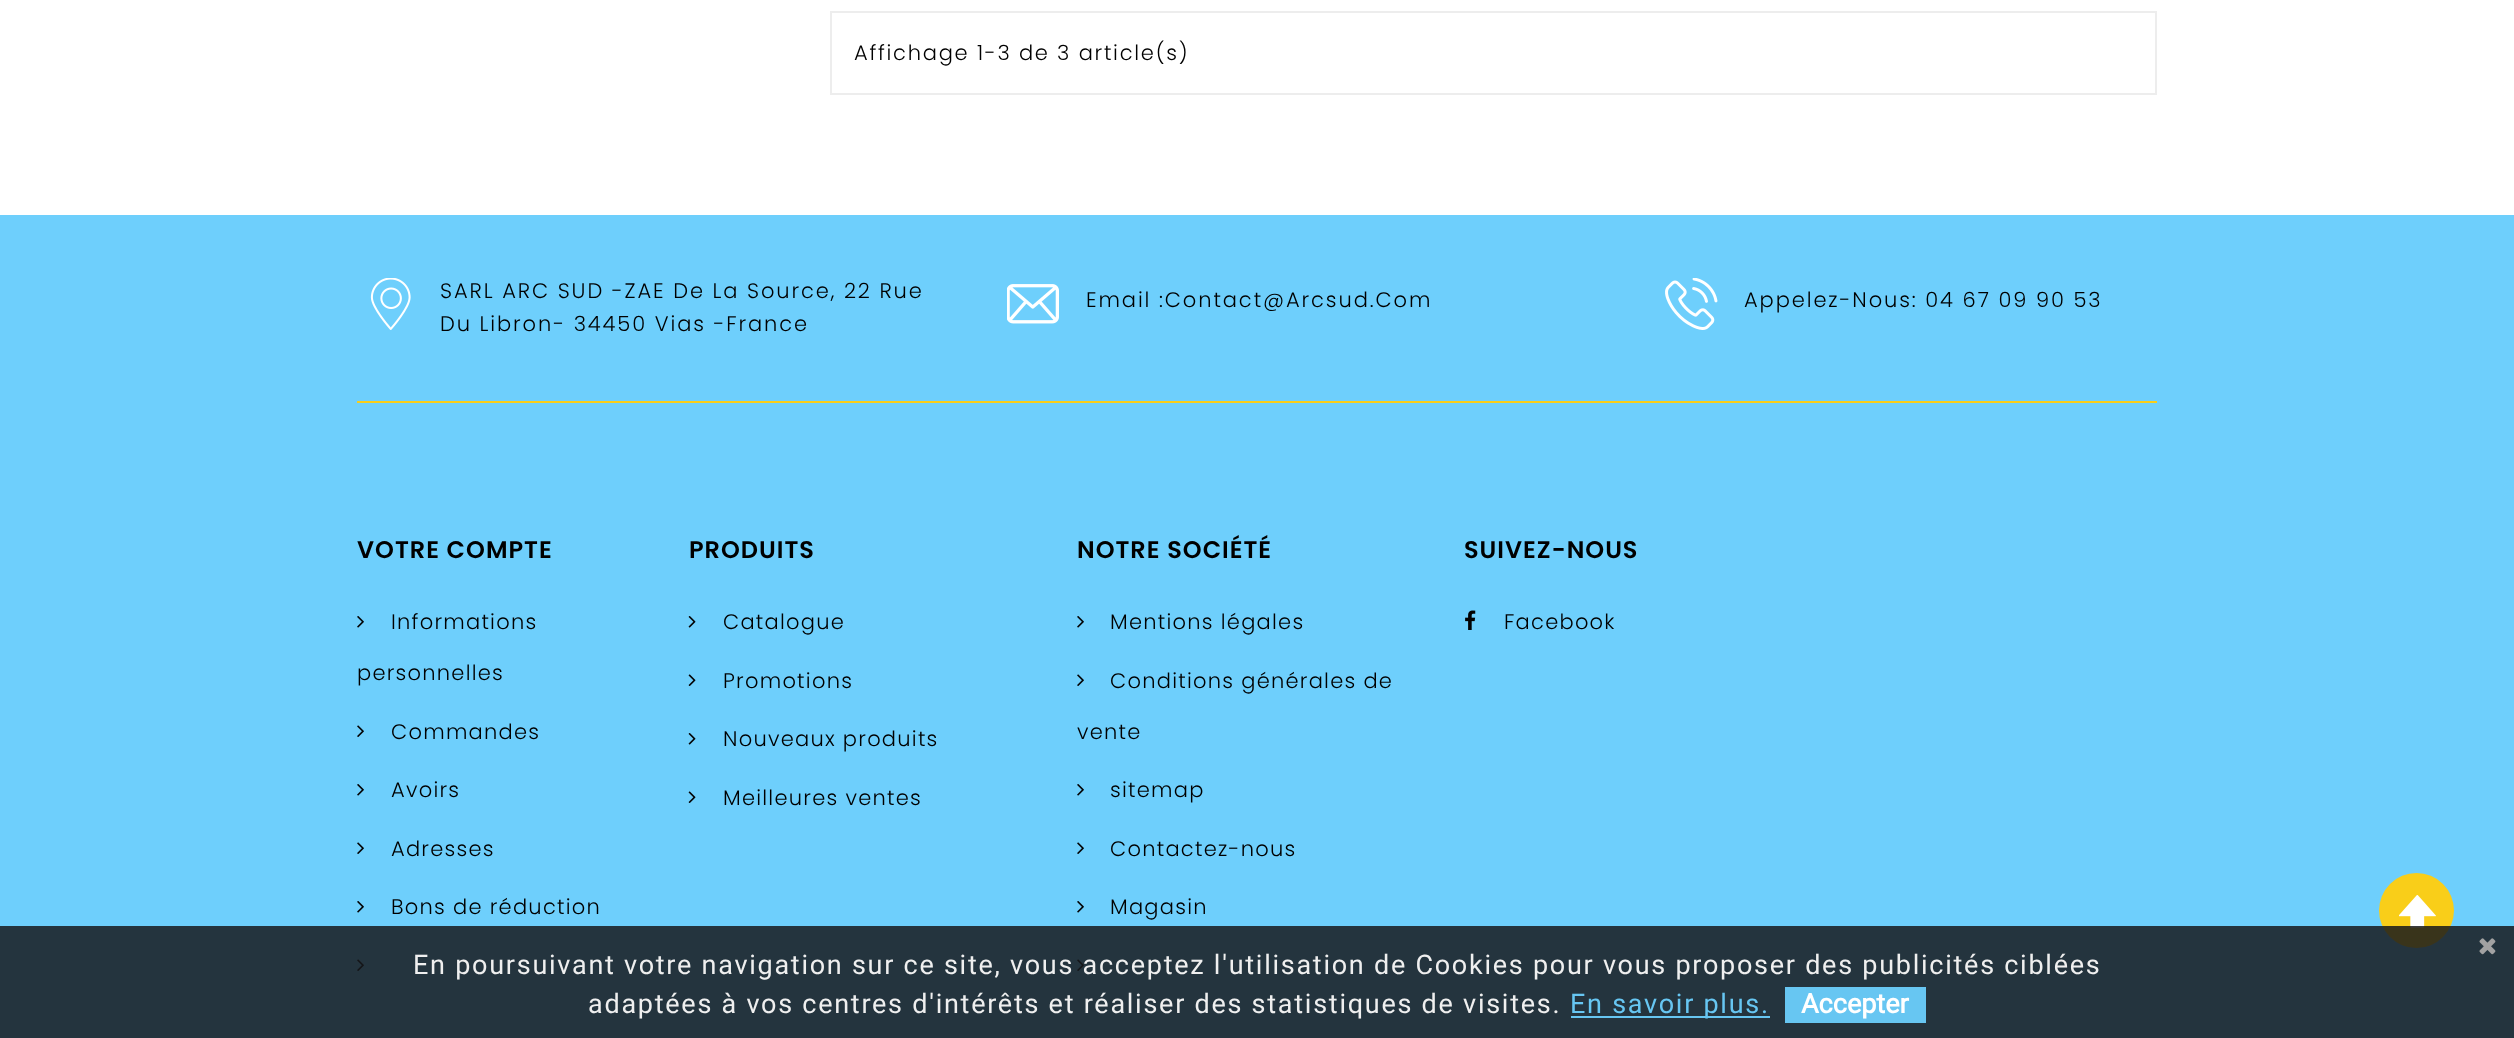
<svg xmlns="http://www.w3.org/2000/svg" xmlns:xlink="http://www.w3.org/1999/xlink" width="2514" height="1038" viewBox="0 0 2514 1038">
<style>
.cls-1{font:300 21px Poppins;letter-spacing:1.74px;fill:#000000}
.cls-2{font:300 21px Poppins;letter-spacing:1.9px;fill:#000000}
.cls-3{font:600 24px Poppins;letter-spacing:1px;fill:#000000}
.cls-4{font:300 21px Poppins;letter-spacing:1.25px;fill:#000000}
.cls-5{font:27px Roboto;letter-spacing:1.74px;fill:#efefef}
.cls-6{font:27px Roboto;letter-spacing:1.74px;fill:#67c6f2}
.cls-7{font:bold 27px Roboto;fill:#ffffff}
</style>
<rect width="100%" height="100%" fill="#ffffff"/>
<rect fill="none" stroke="#ededed" stroke-width="2" x="831" y="12" width="1325" height="82"/>
<rect fill="#6ecffc" x="0" y="215" width="2514" height="823"/>
<rect fill="#f9ce19" x="357" y="401" width="1800" height="2"/>
<image xlink:href="image0.png" x="370" y="278" width="41" height="52"/>
<image xlink:href="image1.png" x="1007" y="284" width="52" height="40"/>
<image xlink:href="image2.png" x="1665" y="278" width="53" height="52"/>
<image xlink:href="image3.png" x="357" y="616" width="7" height="12"/>
<image xlink:href="image4.png" x="357" y="725" width="7" height="12"/>
<image xlink:href="image3.png" x="357" y="784" width="7" height="12"/>
<image xlink:href="image4.png" x="357" y="842" width="7" height="12"/>
<image xlink:href="image3.png" x="357" y="901" width="7" height="12"/>
<image xlink:href="image4.png" x="357" y="959" width="7" height="12"/>
<image xlink:href="image5.png" x="688" y="616" width="8" height="12"/>
<image xlink:href="image6.png" x="688" y="674" width="8" height="12"/>
<image xlink:href="image5.png" x="688" y="733" width="8" height="12"/>
<image xlink:href="image6.png" x="688" y="791" width="8" height="12"/>
<image xlink:href="image3.png" x="1077" y="616" width="7" height="12"/>
<image xlink:href="image4.png" x="1077" y="674" width="7" height="12"/>
<image xlink:href="image3.png" x="1077" y="784" width="7" height="12"/>
<image xlink:href="image4.png" x="1077" y="842" width="7" height="12"/>
<image xlink:href="image3.png" x="1077" y="901" width="7" height="12"/>
<image xlink:href="image4.png" x="1077" y="959" width="7" height="12"/>
<image xlink:href="image7.png" x="1465" y="610" width="11" height="20"/>
<circle fill="#f9ce19" cx="2416.5" cy="910.5" r="37.5"/>
<image xlink:href="image8.png" x="2399" y="895" width="37" height="33"/>
<rect fill="#17191c" fill-opacity="0.85" x="0" y="926" width="2514" height="112"/>
<image xlink:href="image9.png" x="2479" y="938" width="17" height="17"/>
<rect fill="#67c6f2" x="1571" y="1016" width="199" height="2"/>
<rect fill="#67c6f2" x="1785" y="987" width="141" height="36"/>
<text class="cls-1" x="854" y="60">Affichage 1-3 de 3 article(s)</text>
<text class="cls-2"><tspan x="440" y="298">SARL ARC SUD -ZAE De La Source, 22 Rue</tspan><tspan x="440" y="331">Du Libron- 34450 Vias -France</tspan></text>
<text class="cls-2" x="1086" y="307">Email :Contact@Arcsud.Com</text>
<text class="cls-2" x="1744" y="307">Appelez-Nous: 04 67 09 90 53</text>
<text class="cls-3" x="357" y="558">VOTRE COMPTE</text>
<text class="cls-4" x="391" y="629">Informations</text>
<text class="cls-4" x="357" y="680">personnelles</text>
<text class="cls-4" x="391" y="739">Commandes</text>
<text class="cls-4" x="391" y="797">Avoirs</text>
<text class="cls-4" x="391" y="856">Adresses</text>
<text class="cls-4" x="391" y="914">Bons de réduction</text>
<text class="cls-3" x="689" y="558">PRODUITS</text>
<text class="cls-4" x="723" y="629">Catalogue</text>
<text class="cls-4" x="723" y="688">Promotions</text>
<text class="cls-4" x="723" y="746">Nouveaux produits</text>
<text class="cls-4" x="723" y="805">Meilleures ventes</text>
<text class="cls-3" x="1077" y="558">NOTRE SOCIÉTÉ</text>
<text class="cls-4" x="1110" y="629">Mentions légales</text>
<text class="cls-4" x="1110" y="688">Conditions générales de</text>
<text class="cls-4" x="1077" y="739">vente</text>
<text class="cls-4" x="1110" y="797">sitemap</text>
<text class="cls-4" x="1110" y="856">Contactez-nous</text>
<text class="cls-4" x="1110" y="914">Magasin</text>
<text class="cls-3" x="1464" y="558">SUIVEZ-NOUS</text>
<text class="cls-4" x="1504" y="629">Facebook</text>
<text class="cls-5" x="413" y="974">En poursuivant votre navigation sur ce site, vous acceptez l'utilisation de Cookies pour vous proposer des publicités ciblées</text>
<text class="cls-5" x="588" y="1013">adaptées à vos centres d'intérêts et réaliser des statistiques de visites.</text>
<text class="cls-6" x="1570" y="1013">En savoir plus.</text>
<text class="cls-7" x="1801" y="1013">Accepter</text>
</svg>
